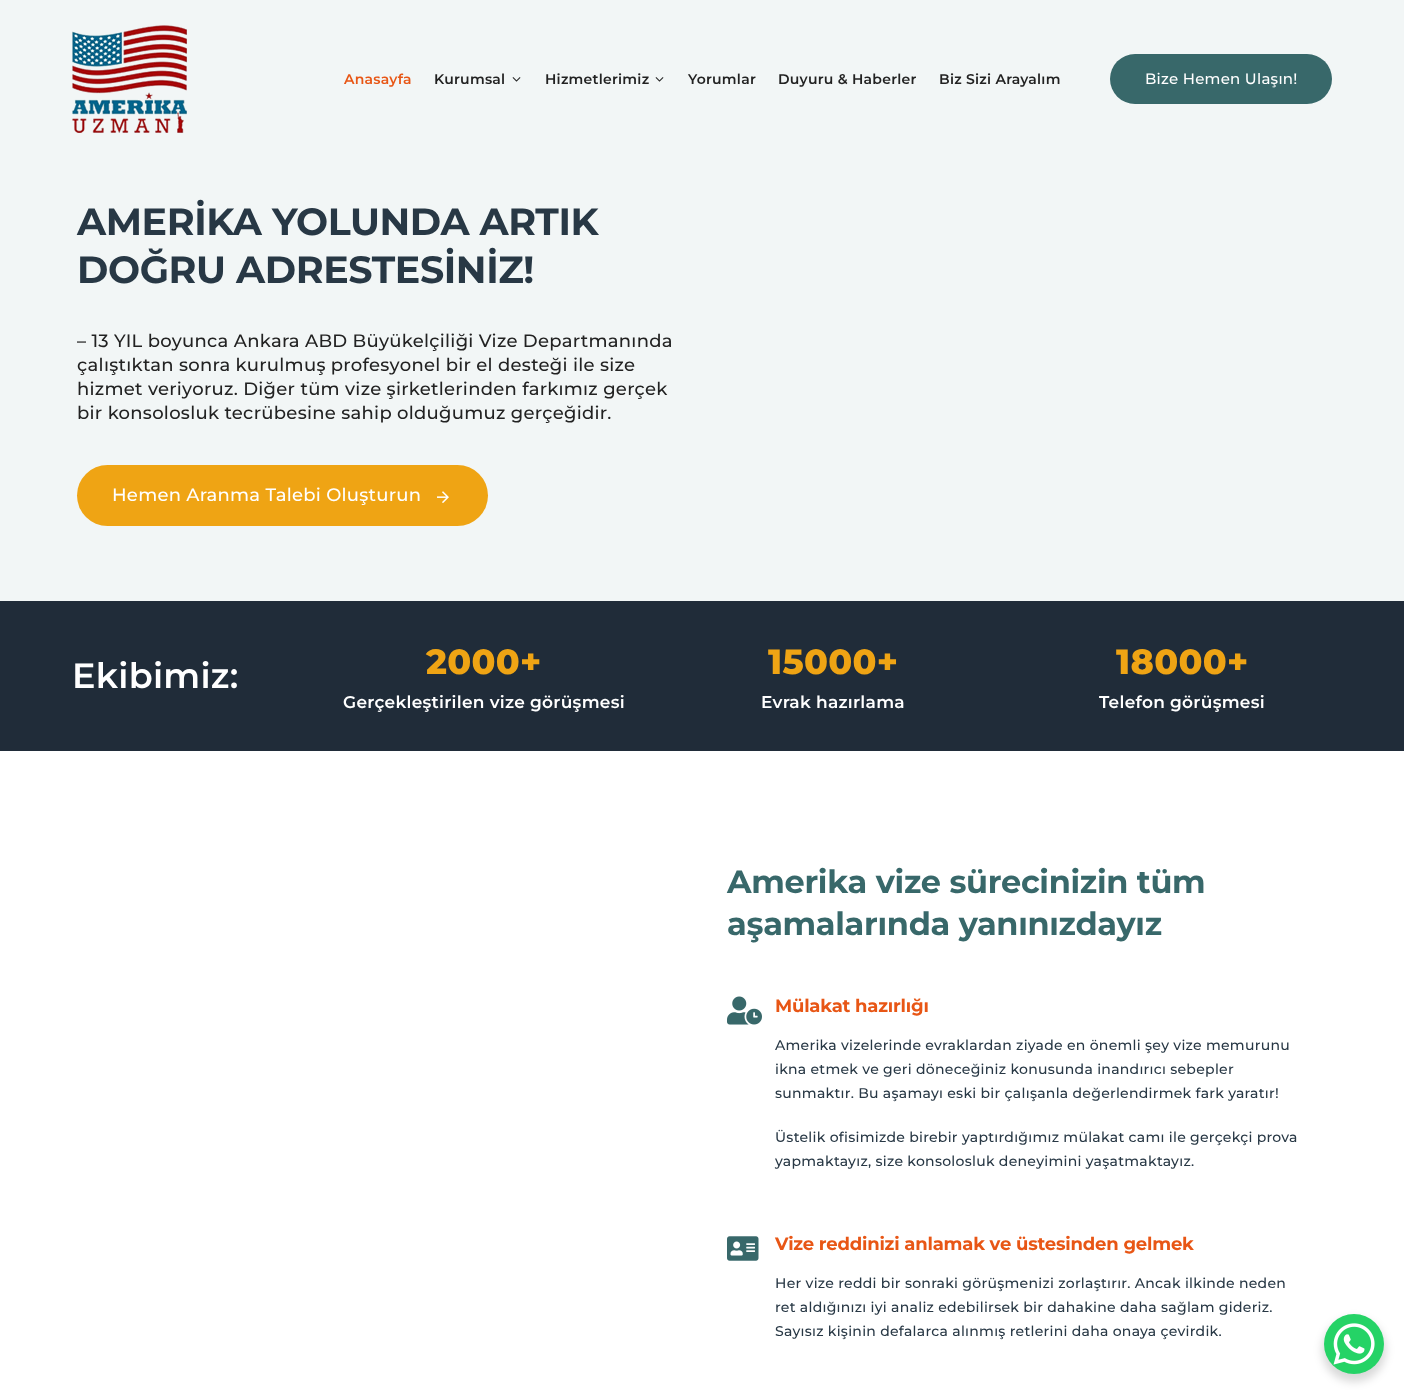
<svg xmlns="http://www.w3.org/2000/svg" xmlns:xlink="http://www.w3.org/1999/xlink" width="1404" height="1394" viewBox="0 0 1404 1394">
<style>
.cls-1{font:600 14px Montserrat;letter-spacing:0.25px;fill:#e85615}
.cls-2{font:600 14px Montserrat;letter-spacing:0.25px;fill:#222222}
.cls-3{font:500 15px Montserrat;letter-spacing:0.25px;fill:#ffffff}
.cls-4{font:bold 38px Montserrat;letter-spacing:-0.4px;fill:#283845}
.cls-5{font:500 18px Montserrat;letter-spacing:0.28px;fill:#222222}
.cls-6{font:500 18px Montserrat;letter-spacing:0.25px;fill:#ffffff}
.cls-7{font:600 35px Montserrat;letter-spacing:0.28px;fill:#ffffff}
.cls-8{font:800 35px Montserrat;letter-spacing:0.28px;fill:#efa414}
.cls-9{font:600 17px Montserrat;letter-spacing:0.28px;fill:#ffffff}
.cls-10{font:bold 32px Montserrat;letter-spacing:-0.3px;fill:#38686a}
.cls-11{font:bold 18px Montserrat;letter-spacing:-0.2px;fill:#e85615}
.cls-12{font:500 14px Montserrat;letter-spacing:0.28px;fill:#283845}
</style>
<rect width="100%" height="100%" fill="#ffffff"/>
<rect fill="#f2f6f6" x="0" y="0" width="1404" height="601"/>
<image xlink:href="image0.png" x="72" y="25" width="115" height="108"/>
<image xlink:href="image1.png" x="512" y="77" width="9" height="5"/>
<image xlink:href="image1.png" x="655" y="77" width="9" height="5"/>
<rect fill="#38686a" x="1110" y="54" width="222" height="50" rx="25"/>
<rect fill="#efa414" x="77" y="465" width="411" height="61" rx="30.5"/>
<image xlink:href="image2.png" x="437" y="491" width="12" height="12"/>
<rect fill="#202c39" x="0" y="601" width="1404" height="150"/>
<image xlink:href="image3.png" x="727" y="996" width="35" height="29"/>
<image xlink:href="image4.png" x="727" y="1236" width="32" height="25"/>
<rect fill="#000000" fill-opacity="0.15" filter="blur(4px)" x="1322" y="1318" width="64" height="64" rx="32"/>
<circle fill="#25d366" cx="1354" cy="1344" r="30"/>
<image xlink:href="image5.png" x="1333" y="1323" width="42" height="42"/>
<text class="cls-1" x="344" y="84">Anasayfa</text>
<text class="cls-2" x="434" y="84">Kurumsal</text>
<text class="cls-2" x="545" y="84">Hizmetlerimiz</text>
<text class="cls-2" x="688" y="84">Yorumlar</text>
<text class="cls-2" x="778" y="84">Duyuru &amp; Haberler</text>
<text class="cls-2" x="939" y="84">Biz Sizi Arayalım</text>
<text class="cls-3" x="1145" y="84">Bize Hemen Ulaşın!</text>
<text class="cls-4"><tspan x="77" y="235">AMERİKA YOLUNDA ARTIK</tspan><tspan x="77" y="283">DOĞRU ADRESTESİNİZ!</tspan></text>
<text class="cls-5"><tspan x="77" y="347">– 13 YIL boyunca Ankara ABD Büyükelçiliği Vize Departmanında</tspan><tspan x="77" y="371">çalıştıktan sonra kurulmuş profesyonel bir el desteği ile size</tspan><tspan x="77" y="395">hizmet veriyoruz. Diğer tüm vize şirketlerinden farkımız gerçek</tspan><tspan x="77" y="419">bir konsolosluk tecrübesine sahip olduğumuz gerçeğidir.</tspan></text>
<text class="cls-6" x="112" y="501">Hemen Aranma Talebi Oluşturun</text>
<text class="cls-7" x="72" y="688">Ekibimiz:</text>
<text class="cls-8" x="426" y="674">2000+</text>
<text class="cls-9" x="343" y="708">Gerçekleştirilen vize görüşmesi</text>
<text class="cls-8" x="768" y="674">15000+</text>
<text class="cls-9" x="761" y="708">Evrak hazırlama</text>
<text class="cls-8" x="1116" y="674">18000+</text>
<text class="cls-9" x="1099" y="708">Telefon görüşmesi</text>
<text class="cls-10"><tspan x="727" y="893">Amerika vize sürecinizin tüm</tspan><tspan x="727" y="935">aşamalarında yanınızdayız</tspan></text>
<text class="cls-11" x="775" y="1012">Mülakat hazırlığı</text>
<text class="cls-12"><tspan x="775" y="1050">Amerika vizelerinde evraklardan ziyade en önemli şey vize memurunu</tspan><tspan x="775" y="1074">ikna etmek ve geri döneceğiniz konusunda inandırıcı sebepler</tspan><tspan x="775" y="1098">sunmaktır. Bu aşamayı eski bir çalışanla değerlendirmek fark yaratır!</tspan></text>
<text class="cls-12"><tspan x="775" y="1142">Üstelik ofisimizde birebir yaptırdığımız mülakat camı ile gerçekçi prova</tspan><tspan x="775" y="1166">yapmaktayız, size konsolosluk deneyimini yaşatmaktayız.</tspan></text>
<text class="cls-11" x="775" y="1250">Vize reddinizi anlamak ve üstesinden gelmek</text>
<text class="cls-12"><tspan x="775" y="1288">Her vize reddi bir sonraki görüşmenizi zorlaştırır. Ancak ilkinde neden</tspan><tspan x="775" y="1312">ret aldığınızı iyi analiz edebilirsek bir dahakine daha sağlam gideriz.</tspan><tspan x="775" y="1336">Sayısız kişinin defalarca alınmış retlerini daha onaya çevirdik.</tspan></text>
</svg>
